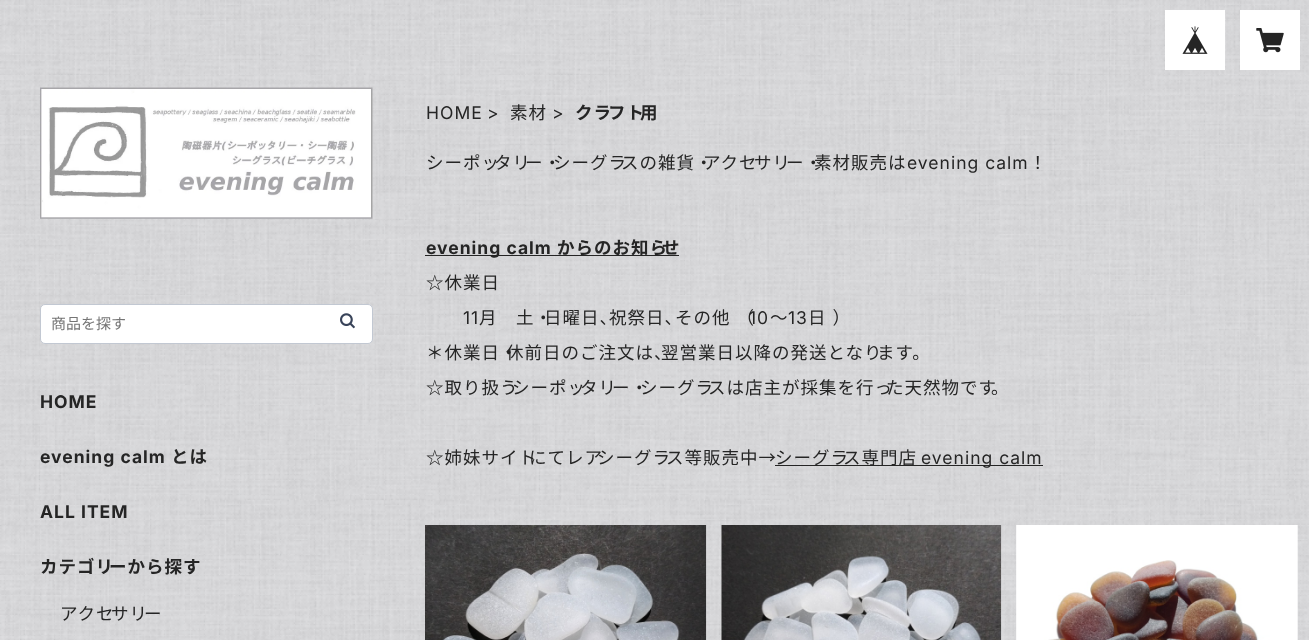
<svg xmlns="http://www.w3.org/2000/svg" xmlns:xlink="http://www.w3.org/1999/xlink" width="1309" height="640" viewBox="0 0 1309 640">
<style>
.cls-1{font:15px Noto Sans JP;fill:#757575}
.cls-2{font:bold 17.5px Inter;letter-spacing:1px;fill:#252525}
.cls-3{font:bold 17.5px Noto Sans JP;letter-spacing:1px;fill:#252525}
.cls-4{font:17.5px Noto Sans JP;letter-spacing:1px;fill:#252525}
.cls-5{font:17.5px Inter;letter-spacing:1px;fill:#252525}
</style>
<rect width="100%" height="100%" fill="#ffffff"/>
<image xlink:href="image0.png" x="0" y="0" width="1309" height="640"/>
<rect fill="#ffffff" x="1165" y="10" width="60" height="60"/>
<image xlink:href="image1.png" x="1182" y="26" width="26" height="28"/>
<rect fill="#ffffff" x="1240" y="10" width="60" height="60"/>
<image xlink:href="image2.png" x="1256" y="28" width="28" height="25"/>
<image xlink:href="image3.png" x="40" y="87" width="333" height="132"/>
<rect fill="#ffffff" stroke="#c2c8d2" x="40.5" y="304.5" width="332" height="39" rx="4.5"/>
<image xlink:href="image4.png" x="340" y="313" width="15" height="16"/>
<rect fill="#252525" x="425" y="255" width="254" height="1"/>
<rect fill="#252525" x="775" y="465" width="268" height="1"/>
<image xlink:href="image5.png" x="425" y="525" width="282" height="115"/>
<rect fill="#ffffff" fill-opacity="0.6" x="721" y="525" width="1" height="115"/>
<image xlink:href="image6.png" x="721" y="525" width="281" height="115"/>
<rect fill="#ffffff" fill-opacity="0.6" x="1016" y="525" width="282" height="115"/>
<image xlink:href="image7.png" x="1016" y="525" width="282" height="115"/>
<text class="cls-1" x="51" y="329">商品を探す</text>
<text class="cls-2" x="40" y="408">HOME</text>
<text class="cls-2" x="40" y="463">evening calm</text>
<text class="cls-3" x="171" y="463">とは</text>
<text class="cls-2" x="40" y="518">ALL ITEM</text>
<text class="cls-3" x="40" y="573">カテゴリ</text>
<text class="cls-3" x="109" y="573">ーから探す</text>
<text class="cls-4" x="60" y="620">アクセ</text>
<text class="cls-4" x="111" y="620">サリ</text>
<text class="cls-4" x="144" y="620">ー</text>
<text class="cls-5" x="426" y="119">HOME</text>
<text class="cls-5" x="487" y="119">&gt;</text>
<text class="cls-4" x="510" y="119">素材</text>
<text class="cls-5" x="552" y="119">&gt;</text>
<text class="cls-3" x="575" y="119">クラ</text>
<text class="cls-3" x="608" y="119">フト</text>
<text class="cls-3" x="640" y="119">用</text>
<text class="cls-4" x="426" y="169">シーポッ</text>
<text class="cls-4" x="494" y="169">タリ</text>
<text class="cls-4" x="525" y="169">ー・</text>
<text class="cls-4" x="553" y="169">シーグラ</text>
<text class="cls-4" x="621" y="169">スの雑貨・</text>
<text class="cls-4" x="703" y="169">アクセ</text>
<text class="cls-4" x="754" y="169">サリ</text>
<text class="cls-4" x="786" y="169">ー・</text>
<text class="cls-4" x="814" y="169">素材販売は</text>
<text class="cls-5" x="907" y="169">evening calm</text>
<text class="cls-4" x="1029" y="169">！</text>
<text class="cls-2" x="426" y="254">evening calm</text>
<text class="cls-3" x="557" y="254">からのお知ら</text>
<text class="cls-3" x="662" y="254">せ</text>
<text class="cls-4" x="426" y="289">☆休業日</text>
<text class="cls-5" x="463" y="324">11</text>
<text class="cls-4" x="479" y="324" word-spacing="1">月　土・</text>
<text class="cls-4" x="544" y="324" word-spacing="1">日曜日、</text>
<text class="cls-4" x="609" y="324" word-spacing="1">祝祭日、</text>
<text class="cls-4" x="675" y="324" word-spacing="1">その他 （</text>
<text class="cls-5" x="749" y="324">10</text>
<text class="cls-4" x="770" y="324">～</text>
<text class="cls-5" x="788" y="324">13</text>
<text class="cls-4" x="808" y="324" word-spacing="1">日 ）</text>
<text class="cls-4" x="426" y="359">＊休業日・</text>
<text class="cls-4" x="506" y="359">休前日のご注文は、</text>
<text class="cls-4" x="661" y="359">翌営業日以降の発送となり</text>
<text class="cls-4" x="877" y="359">ます。</text>
<text class="cls-4" x="426" y="394">☆取り扱う</text>
<text class="cls-4" x="512" y="394">シーポッ</text>
<text class="cls-4" x="580" y="394">タリ</text>
<text class="cls-4" x="612" y="394">ー・</text>
<text class="cls-4" x="640" y="394">シーグラ</text>
<text class="cls-4" x="708" y="394">スは店主が採集を行っ</text>
<text class="cls-4" x="886" y="394">た天然物です</text>
<text class="cls-4" x="991" y="394">。</text>
<text class="cls-4" x="426" y="464">☆姉妹サイト</text>
<text class="cls-4" x="529" y="464">にてレア</text>
<text class="cls-4" x="597" y="464">シーグラ</text>
<text class="cls-4" x="666" y="464">ス等販売中→</text>
<text class="cls-4" x="775" y="464">シーグラ</text>
<text class="cls-4" x="843" y="464">ス専門店</text>
<text class="cls-5" x="921" y="464">evening calm</text>
</svg>
